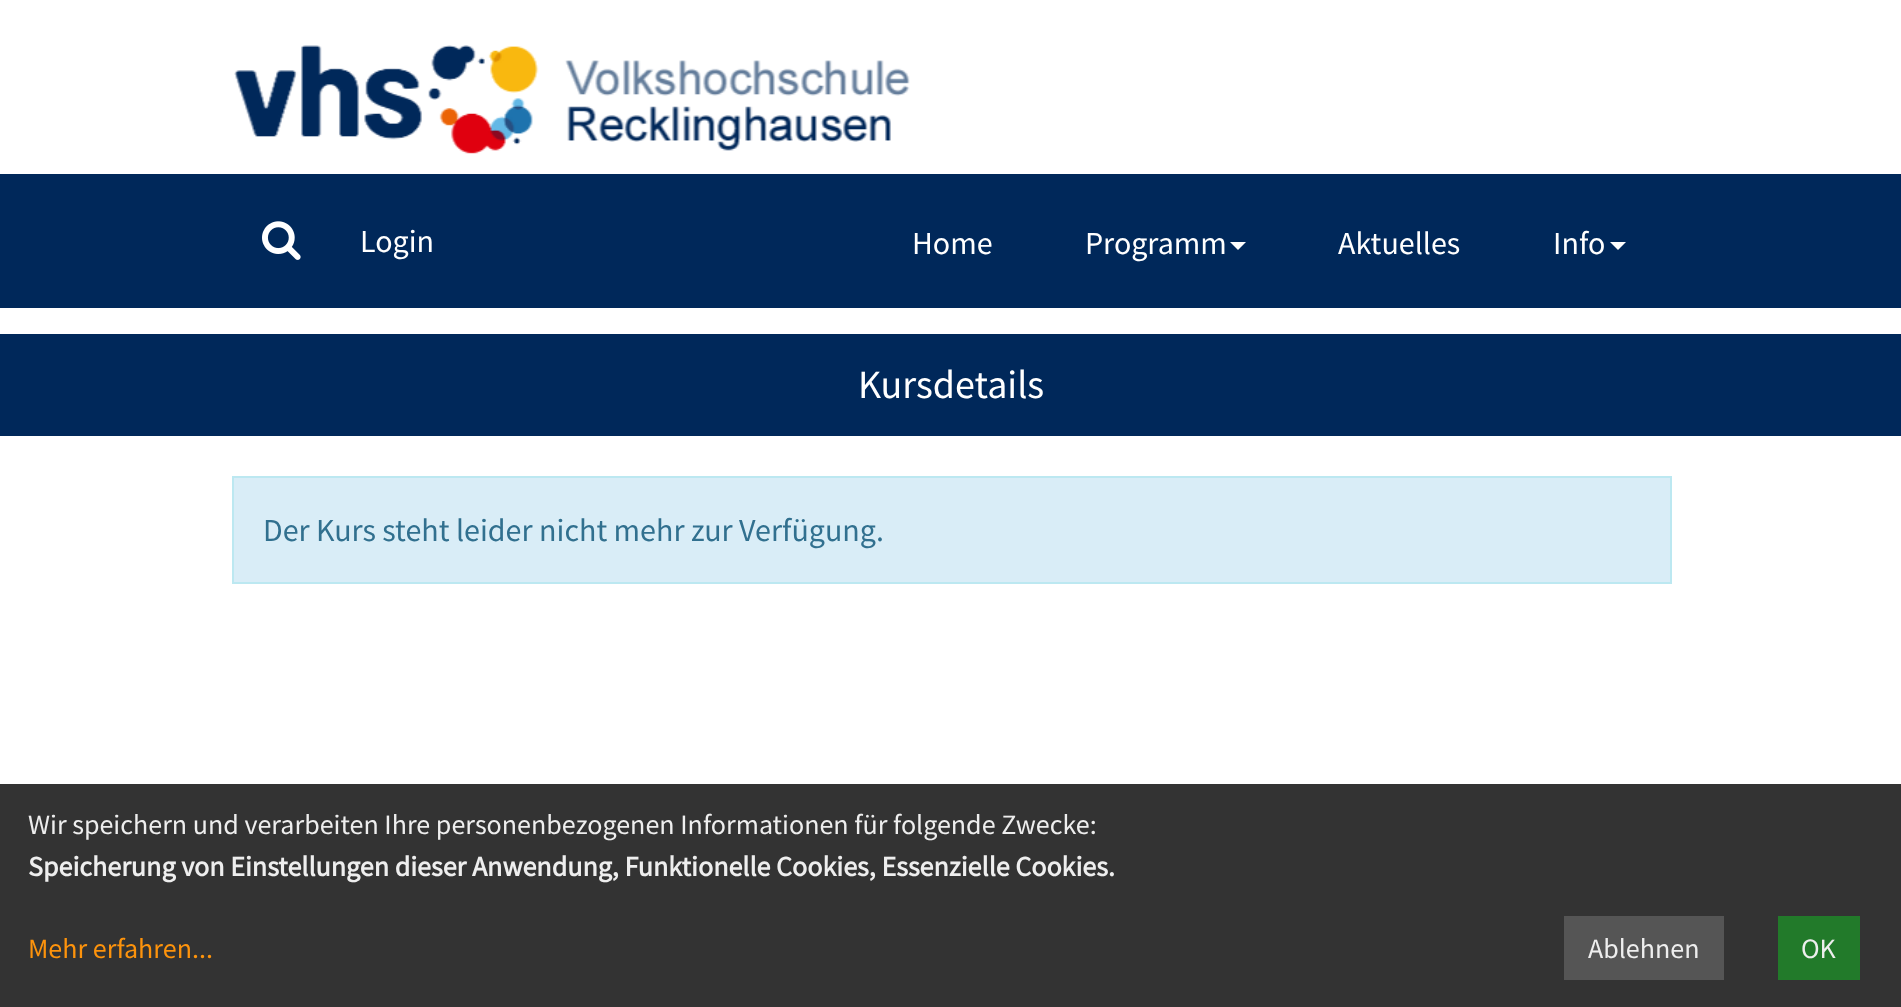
<svg xmlns="http://www.w3.org/2000/svg" xmlns:xlink="http://www.w3.org/1999/xlink" width="1901" height="1007" viewBox="0 0 1901 1007">
<style>
.cls-1{font:32px Source Sans Pro;fill:#ffffff}
.cls-2{font:40px Source Sans Pro;fill:#ffffff}
.cls-3{font:32px Source Sans Pro;fill:#31708f}
.cls-4{font:28px Source Sans Pro;fill:#eeeeee}
.cls-5{font:bold 28px Source Sans Pro;fill:#eeeeee}
.cls-6{font:28px Source Sans Pro;fill:#fd930c}
</style>
<rect width="100%" height="100%" fill="#ffffff"/>
<image xlink:href="image0.png" x="234" y="45" width="676" height="109"/>
<rect fill="#00285a" x="0" y="174" width="1901" height="134"/>
<image xlink:href="image1.png" x="262" y="221" width="39" height="39"/>
<path fill="#ffffff" d="M1230 242H1246L1238 250Z"/>
<path fill="#ffffff" d="M1610 242H1626L1618 250Z"/>
<rect fill="#00285a" x="0" y="334" width="1901" height="102"/>
<rect fill="#d9edf7" stroke="#bce8f1" stroke-width="2" x="233" y="477" width="1438" height="106"/>
<rect fill="#333333" x="0" y="784" width="1901" height="223"/>
<rect fill="#555555" x="1564" y="916" width="160" height="64"/>
<rect fill="#227a2a" x="1778" y="916" width="82" height="64"/>
<text class="cls-1" x="360" y="252">Login</text>
<text class="cls-1" x="912" y="254">Home</text>
<text class="cls-1" x="1085" y="254">Programm</text>
<text class="cls-1" x="1338" y="254">Aktuelles</text>
<text class="cls-1" x="1553" y="254">Info</text>
<text class="cls-2" x="858" y="398">Kursdetails</text>
<text class="cls-3" x="263" y="541">Der Kurs steht leider nicht mehr zur Verfügung.</text>
<text class="cls-4" x="28" y="834">Wir speichern und verarbeiten Ihre personenbezogenen Informationen für folgende Zwecke:</text>
<text class="cls-5" x="28" y="876">Speicherung von Einstellungen dieser Anwendung, Funktionelle Cookies, Essenzielle Cookies.</text>
<text class="cls-6" x="28" y="958">Mehr erfahren...</text>
<text class="cls-4" x="1588" y="958">Ablehnen</text>
<text class="cls-4" x="1801" y="958">OK</text>
</svg>
